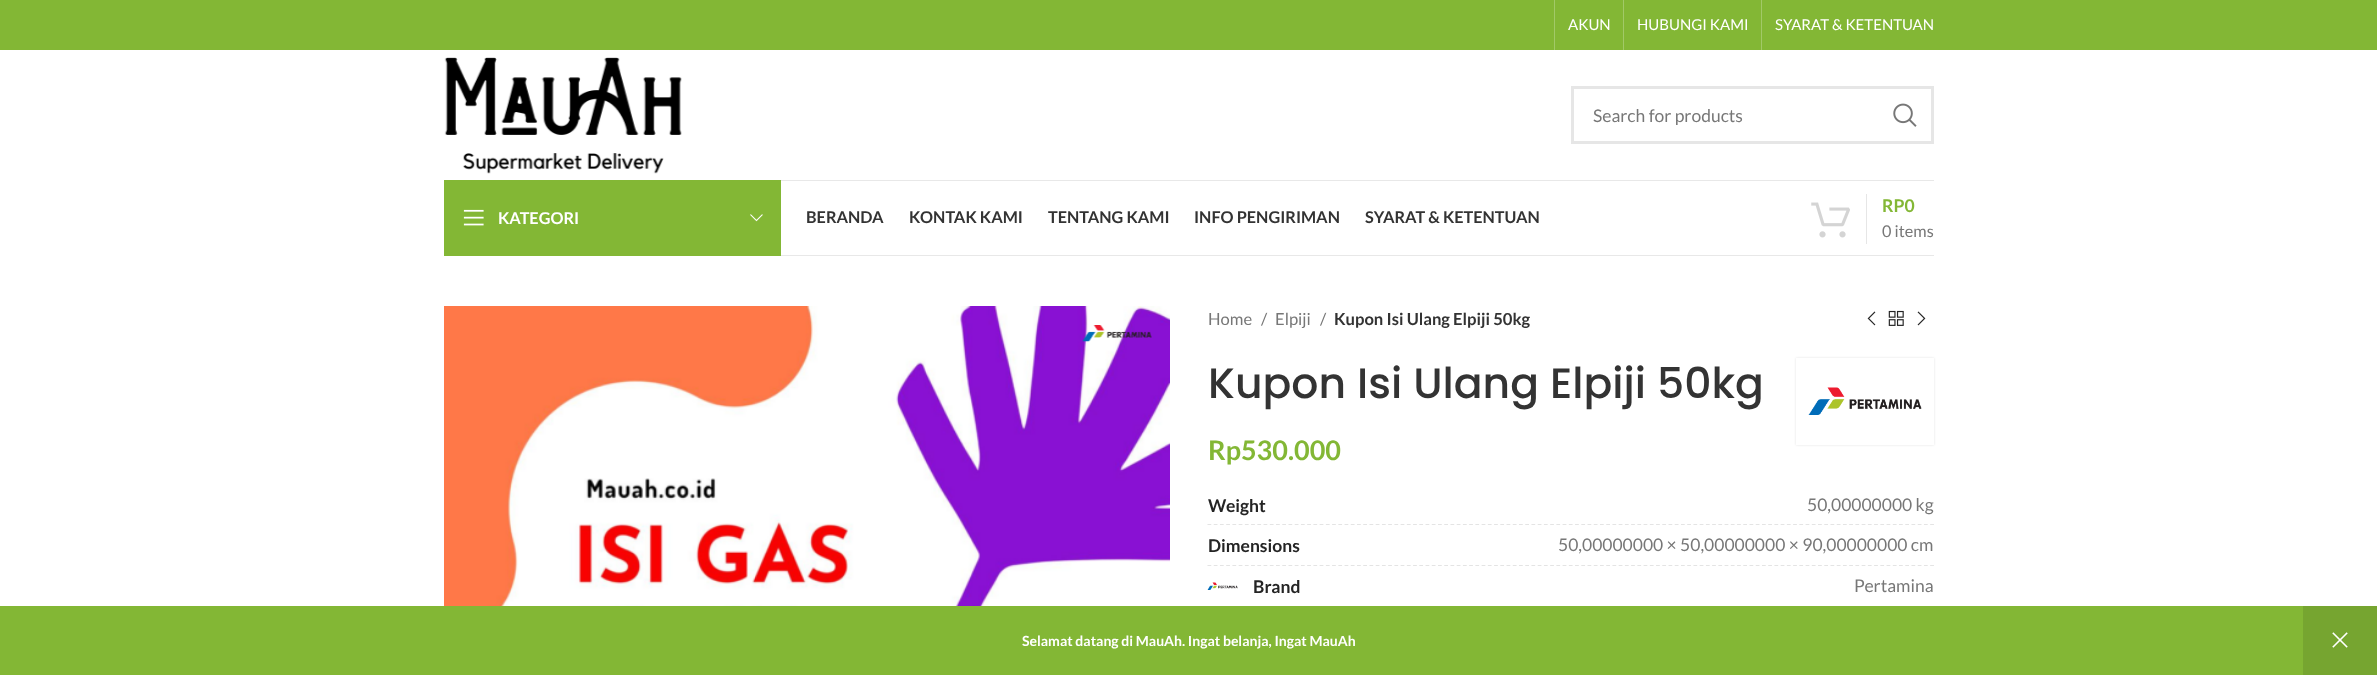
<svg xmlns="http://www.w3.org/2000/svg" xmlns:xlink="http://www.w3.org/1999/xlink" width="2377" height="675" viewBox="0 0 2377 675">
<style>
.cls-1{font:15px Lato;fill:#ffffff}
.cls-2{font:17.5px Lato;fill:#777777}
.cls-3{font:bold 16.25px Lato;fill:#ffffff}
.cls-4{font:bold 16.25px Lato;fill:#333333}
.cls-5{font:bold 17.5px Lato;fill:#83b735}
.cls-6{font:16.25px Lato;fill:#777777}
.cls-7{font:16.6px Lato;fill:#777777}
.cls-8{font:bold 16.6px Lato;fill:#333333}
.cls-9{font:500 42.5px Poppins;fill:#333333}
.cls-10{font:bold 27px Lato;fill:#83b735}
.cls-11{font:bold 17.5px Lato;fill:#242424}
.cls-12{font:bold 14px Lato;fill:#ffffff}
</style>
<rect width="100%" height="100%" fill="#ffffff"/>
<rect fill="#83b735" x="0" y="0" width="2377" height="50"/>
<rect fill="#a2c968" x="1554" y="0" width="1" height="50"/>
<rect fill="#a2c968" x="1623" y="0" width="1" height="50"/>
<rect fill="#a2c968" x="1761" y="0" width="1" height="50"/>
<rect fill="#e8e8e8" x="781" y="180" width="1153" height="1"/>
<image xlink:href="image0.png" x="444" y="57" width="238" height="117"/>
<rect fill="none" stroke="#e6e6e6" stroke-width="3" x="1572.5" y="87.5" width="360" height="55"/>
<image xlink:href="image1.png" x="1893" y="103" width="24" height="24"/>
<rect fill="#e8e8e8" x="781" y="255" width="1153" height="1"/>
<rect fill="#83b735" x="444" y="180" width="337" height="76"/>
<image xlink:href="image2.png" x="463" y="209" width="21" height="17"/>
<image xlink:href="image3.png" x="750" y="214" width="13" height="8"/>
<image xlink:href="image4.png" x="1811" y="202" width="39" height="36"/>
<rect fill="#e6e6e6" x="1866" y="194" width="1" height="50"/>
<image xlink:href="image5.png" x="444" y="306" width="726" height="300"/>
<image xlink:href="image6.png" x="1082" y="325" width="70" height="17"/>
<image xlink:href="image7.png" x="1867" y="311" width="9" height="15"/>
<image xlink:href="image8.png" x="1888" y="310" width="16" height="16"/>
<image xlink:href="image9.png" x="1917" y="311" width="9" height="15"/>
<rect fill="#000000" fill-opacity="0.12" filter="blur(1px)" x="1796" y="358" width="138" height="87"/>
<rect fill="#ffffff" x="1796" y="358" width="138" height="87"/>
<image xlink:href="image10.png" x="1808" y="387" width="114" height="28"/>
<path fill="none" stroke="#e4e4e4" stroke-width="1.2" stroke-dasharray="3.75 2.48" d="M1207.5 524.5H1934"/>
<path fill="none" stroke="#e4e4e4" stroke-width="1.2" stroke-dasharray="3.75 2.48" d="M1207.5 565.5H1934"/>
<image xlink:href="image11.png" x="1207" y="582" width="31" height="8"/>
<rect fill="#83b735" x="0" y="606" width="2303" height="69"/>
<rect fill="#76a530" x="2303" y="606" width="74" height="69"/>
<image xlink:href="image12.png" x="2332" y="632" width="16" height="16"/>
<text class="cls-1" x="1568" y="30">AKUN</text>
<text class="cls-1" x="1637" y="30">HUBUNGI KAMI</text>
<text class="cls-1" x="1775" y="30">SYARAT &amp; KETENTUAN</text>
<text class="cls-2" x="1593" y="122">Search for products</text>
<text class="cls-3" x="498" y="224">KATEGORI</text>
<text class="cls-4" x="806" y="223">BERANDA</text>
<text class="cls-4" x="909" y="223">KONTAK KAMI</text>
<text class="cls-4" x="1048" y="223">TENTANG KAMI</text>
<text class="cls-4" x="1194" y="223">INFO PENGIRIMAN</text>
<text class="cls-4" x="1365" y="223">SYARAT &amp; KETENTUAN</text>
<text class="cls-5" x="1882" y="212">RP0</text>
<text class="cls-6" x="1882" y="237">0 items</text>
<text class="cls-7" x="1208" y="325">Home</text>
<text class="cls-7" x="1261" y="325">/</text>
<text class="cls-7" x="1275" y="325">Elpiji</text>
<text class="cls-7" x="1320" y="325">/</text>
<text class="cls-8" x="1334" y="325">Kupon Isi Ulang Elpiji 50kg</text>
<text class="cls-9" x="1208" y="398">Kupon Isi Ulang Elpiji 50kg</text>
<text class="cls-10" x="1208" y="460">Rp530.000</text>
<text class="cls-11" x="1208" y="512">Weight</text>
<text class="cls-2" x="1807" y="511">50,00000000 kg</text>
<text class="cls-11" x="1208" y="552">Dimensions</text>
<text class="cls-2" x="1558" y="551">50,00000000 × 50,00000000 × 90,00000000 cm</text>
<text class="cls-11" x="1253" y="593">Brand</text>
<text class="cls-2" x="1854" y="592">Pertamina</text>
<text class="cls-12" x="1022" y="646">Selamat datang di MauAh. Ingat belanja, Ingat MauAh</text>
</svg>
